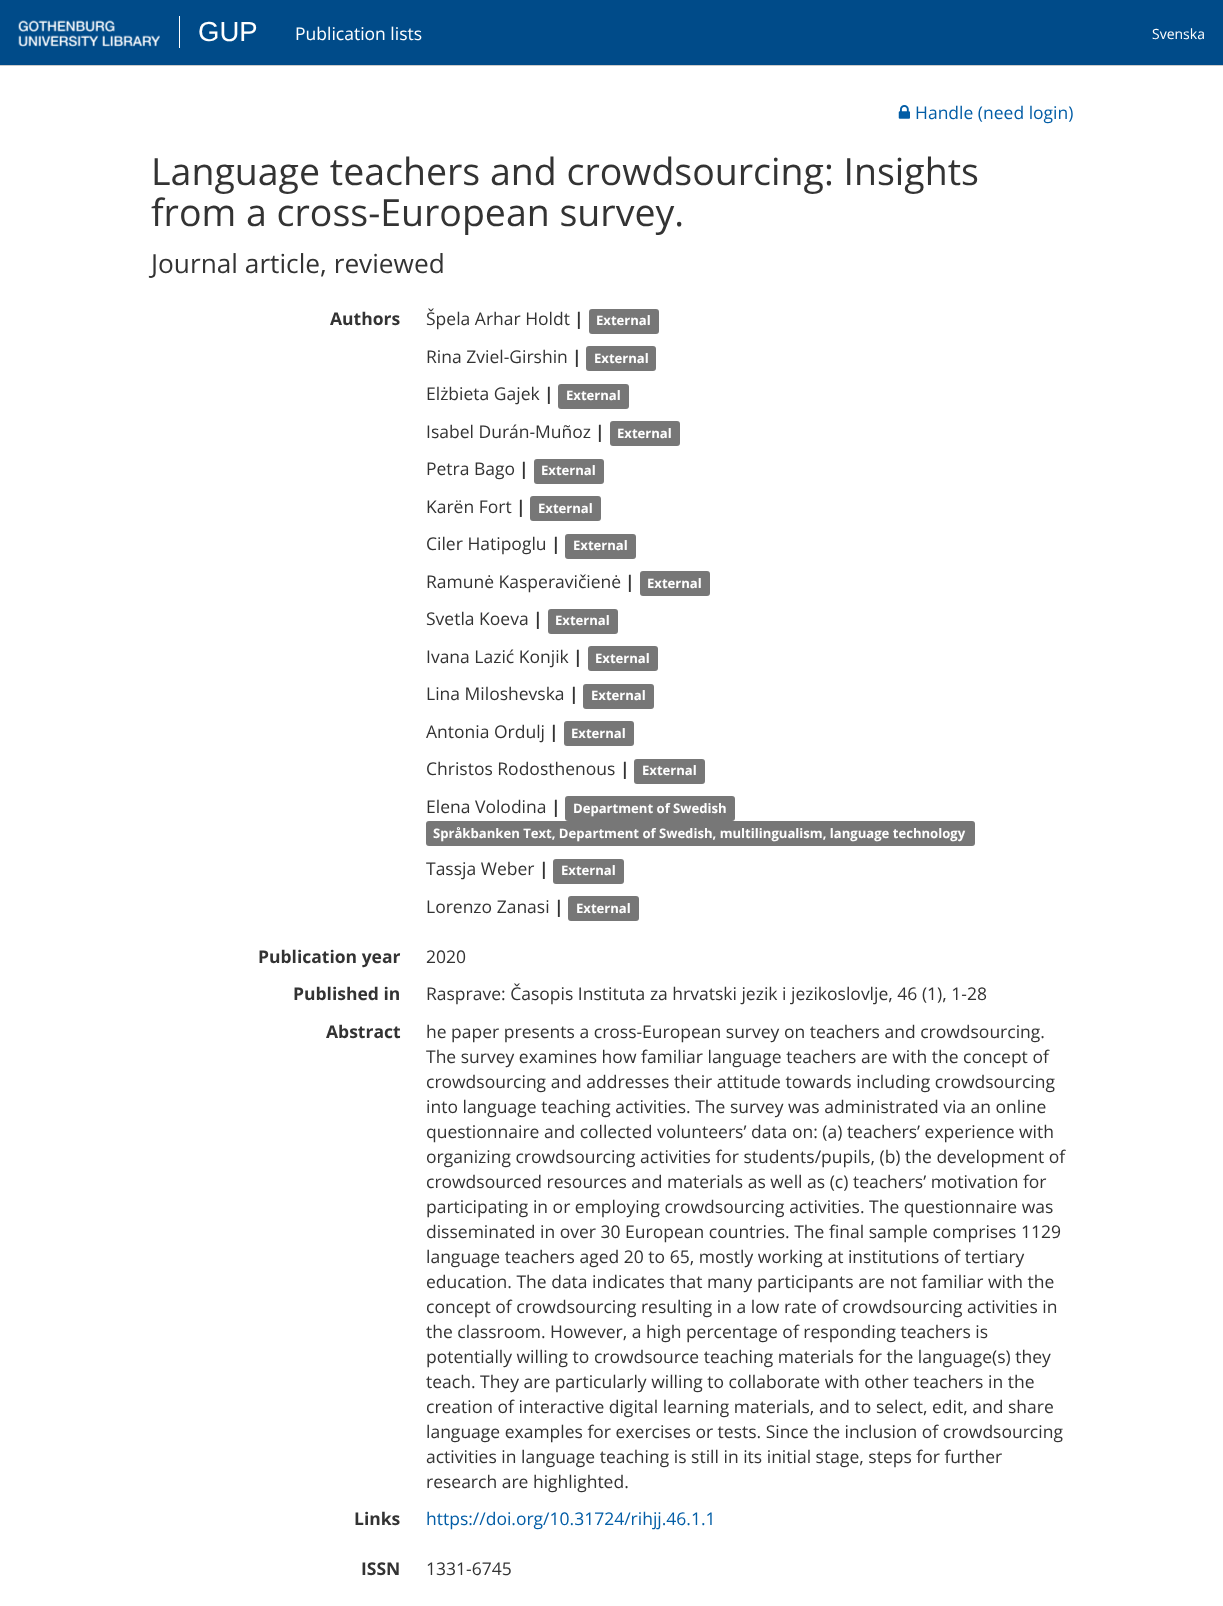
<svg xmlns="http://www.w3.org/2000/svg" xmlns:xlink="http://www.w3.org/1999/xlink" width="1223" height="1606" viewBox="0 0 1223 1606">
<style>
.cls-1{font:27.5px Liberation Sans;fill:#ffffff}
.cls-2{font:17.5px Open Sans;fill:#ffffff}
.cls-3{font:14px Open Sans;fill:#ffffff}
.cls-4{font:17.5px Open Sans;fill:#025da6}
.cls-5{font:37.5px Open Sans;fill:#333333}
.cls-6{font:26.25px Open Sans;fill:#333333}
.cls-7{font:bold 17.5px Open Sans;fill:#333333}
.cls-8{font:17.5px Open Sans;fill:#333333}
.cls-9{font:bold 13.1px Open Sans;fill:#ffffff}
</style>
<rect width="100%" height="100%" fill="#ffffff"/>
<rect fill="#004b89" x="0" y="0" width="1223" height="65"/>
<rect fill="#cccccc" x="0" y="65" width="1223" height="1"/>
<image xlink:href="image0.png" x="18" y="20" width="142" height="27"/>
<rect fill="#ffffff" x="179" y="16" width="1" height="32"/>
<image xlink:href="image1.png" x="898" y="105" width="12" height="14"/>
<rect fill="#777777" x="589" y="309" width="70" height="25" rx="3"/>
<rect fill="#777777" x="586" y="346" width="70" height="25" rx="3"/>
<rect fill="#777777" x="558" y="384" width="71" height="25" rx="3"/>
<rect fill="#777777" x="610" y="421" width="70" height="25" rx="3"/>
<rect fill="#777777" x="534" y="459" width="70" height="25" rx="3"/>
<rect fill="#777777" x="530" y="496" width="71" height="25" rx="3"/>
<rect fill="#777777" x="565" y="534" width="71" height="25" rx="3"/>
<rect fill="#777777" x="640" y="571" width="70" height="25" rx="3"/>
<rect fill="#777777" x="548" y="609" width="70" height="25" rx="3"/>
<rect fill="#777777" x="588" y="646" width="70" height="25" rx="3"/>
<rect fill="#777777" x="583" y="684" width="71" height="25" rx="3"/>
<rect fill="#777777" x="564" y="721" width="70" height="25" rx="3"/>
<rect fill="#777777" x="634" y="759" width="71" height="25" rx="3"/>
<rect fill="#777777" x="565" y="796" width="170" height="25" rx="3"/>
<rect fill="#777777" x="426" y="821" width="549" height="25" rx="3"/>
<rect fill="#777777" x="553" y="859" width="71" height="25" rx="3"/>
<rect fill="#777777" x="568" y="896" width="71" height="25" rx="3"/>
<text class="cls-1" x="198" y="41">GUP</text>
<text class="cls-2" x="295" y="40">Publication lists</text>
<text class="cls-3" x="1152" y="39">Svenska</text>
<text class="cls-4" x="915" y="119">Handle (need login)</text>
<text class="cls-5"><tspan x="151" y="185">Language teachers and crowdsourcing: Insights</tspan><tspan x="151" y="226">from a cross-European survey.</tspan></text>
<text class="cls-6" x="151" y="273">Journal article, reviewed</text>
<text class="cls-7" x="330" y="325">Authors</text>
<text class="cls-8" x="426" y="325">Špela Arhar Holdt</text>
<text class="cls-7" x="574" y="325">|</text>
<text class="cls-9" x="596" y="325">External</text>
<text class="cls-8" x="426" y="363">Rina Zviel-Girshin</text>
<text class="cls-7" x="572" y="363">|</text>
<text class="cls-9" x="594" y="363">External</text>
<text class="cls-8" x="426" y="400">Elżbieta Gajek</text>
<text class="cls-7" x="544" y="400">|</text>
<text class="cls-9" x="566" y="400">External</text>
<text class="cls-8" x="426" y="438">Isabel Durán-Muñoz</text>
<text class="cls-7" x="595" y="438">|</text>
<text class="cls-9" x="617" y="438">External</text>
<text class="cls-8" x="426" y="475">Petra Bago</text>
<text class="cls-7" x="519" y="475">|</text>
<text class="cls-9" x="541" y="475">External</text>
<text class="cls-8" x="426" y="513">Karën Fort</text>
<text class="cls-7" x="516" y="513">|</text>
<text class="cls-9" x="538" y="513">External</text>
<text class="cls-8" x="426" y="550">Ciler Hatipoglu</text>
<text class="cls-7" x="551" y="550">|</text>
<text class="cls-9" x="573" y="550">External</text>
<text class="cls-8" x="426" y="588">Ramunė Kasperavičienė</text>
<text class="cls-7" x="625" y="588">|</text>
<text class="cls-9" x="647" y="588">External</text>
<text class="cls-8" x="426" y="625">Svetla Koeva</text>
<text class="cls-7" x="533" y="625">|</text>
<text class="cls-9" x="555" y="625">External</text>
<text class="cls-8" x="426" y="663">Ivana Lazić Konjik</text>
<text class="cls-7" x="573" y="663">|</text>
<text class="cls-9" x="595" y="663">External</text>
<text class="cls-8" x="426" y="700">Lina Miloshevska</text>
<text class="cls-7" x="569" y="700">|</text>
<text class="cls-9" x="591" y="700">External</text>
<text class="cls-8" x="426" y="738">Antonia Ordulj</text>
<text class="cls-7" x="549" y="738">|</text>
<text class="cls-9" x="571" y="738">External</text>
<text class="cls-8" x="426" y="775">Christos Rodosthenous</text>
<text class="cls-7" x="620" y="775">|</text>
<text class="cls-9" x="642" y="775">External</text>
<text class="cls-8" x="426" y="813">Elena Volodina</text>
<text class="cls-7" x="551" y="813">|</text>
<text class="cls-9" x="573" y="813">Department of Swedish</text>
<text class="cls-9" x="433" y="838">Språkbanken Text, Department of Swedish, multilingualism, language technology</text>
<text class="cls-8" x="426" y="875">Tassja Weber</text>
<text class="cls-7" x="539" y="875">|</text>
<text class="cls-9" x="561" y="875">External</text>
<text class="cls-8" x="426" y="913">Lorenzo Zanasi</text>
<text class="cls-7" x="554" y="913">|</text>
<text class="cls-9" x="576" y="913">External</text>
<text class="cls-7" x="258" y="963">Publication year</text>
<text class="cls-8" x="426" y="963">2020</text>
<text class="cls-7" x="293" y="1000">Published in</text>
<text class="cls-8" x="426" y="1000">Rasprave: Časopis Instituta za hrvatski jezik i jezikoslovlje, 46 (1), 1-28</text>
<text class="cls-7" x="326" y="1038">Abstract</text>
<text class="cls-8"><tspan x="426" y="1038">he paper presents a cross-European survey on teachers and crowdsourcing.</tspan><tspan x="426" y="1063">The survey examines how familiar language teachers are with the concept of</tspan><tspan x="426" y="1088">crowdsourcing and addresses their attitude towards including crowdsourcing</tspan><tspan x="426" y="1113">into language teaching activities. The survey was administrated via an online</tspan><tspan x="426" y="1138">questionnaire and collected volunteers’ data on: (a) teachers’ experience with</tspan><tspan x="426" y="1163">organizing crowdsourcing activities for students/pupils, (b) the development of</tspan><tspan x="426" y="1188">crowdsourced resources and materials as well as (c) teachers’ motivation for</tspan><tspan x="426" y="1213">participating in or employing crowdsourcing activities. The questionnaire was</tspan><tspan x="426" y="1238">disseminated in over 30 European countries. The final sample comprises 1129</tspan><tspan x="426" y="1263">language teachers aged 20 to 65, mostly working at institutions of tertiary</tspan><tspan x="426" y="1288">education. The data indicates that many participants are not familiar with the</tspan><tspan x="426" y="1313">concept of crowdsourcing resulting in a low rate of crowdsourcing activities in</tspan><tspan x="426" y="1338">the classroom. However, a high percentage of responding teachers is</tspan><tspan x="426" y="1363">potentially willing to crowdsource teaching materials for the language(s) they</tspan><tspan x="426" y="1388">teach. They are particularly willing to collaborate with other teachers in the</tspan><tspan x="426" y="1413">creation of interactive digital learning materials, and to select, edit, and share</tspan><tspan x="426" y="1438">language examples for exercises or tests. Since the inclusion of crowdsourcing</tspan><tspan x="426" y="1463">activities in language teaching is still in its initial stage, steps for further</tspan><tspan x="426" y="1488">research are highlighted.</tspan></text>
<text class="cls-7" x="354" y="1525">Links</text>
<text class="cls-4" x="426" y="1525">https://doi.org/10.31724/rihjj.46.1.1</text>
<text class="cls-7" x="361" y="1575">ISSN</text>
<text class="cls-8" x="426" y="1575">1331-6745</text>
</svg>
